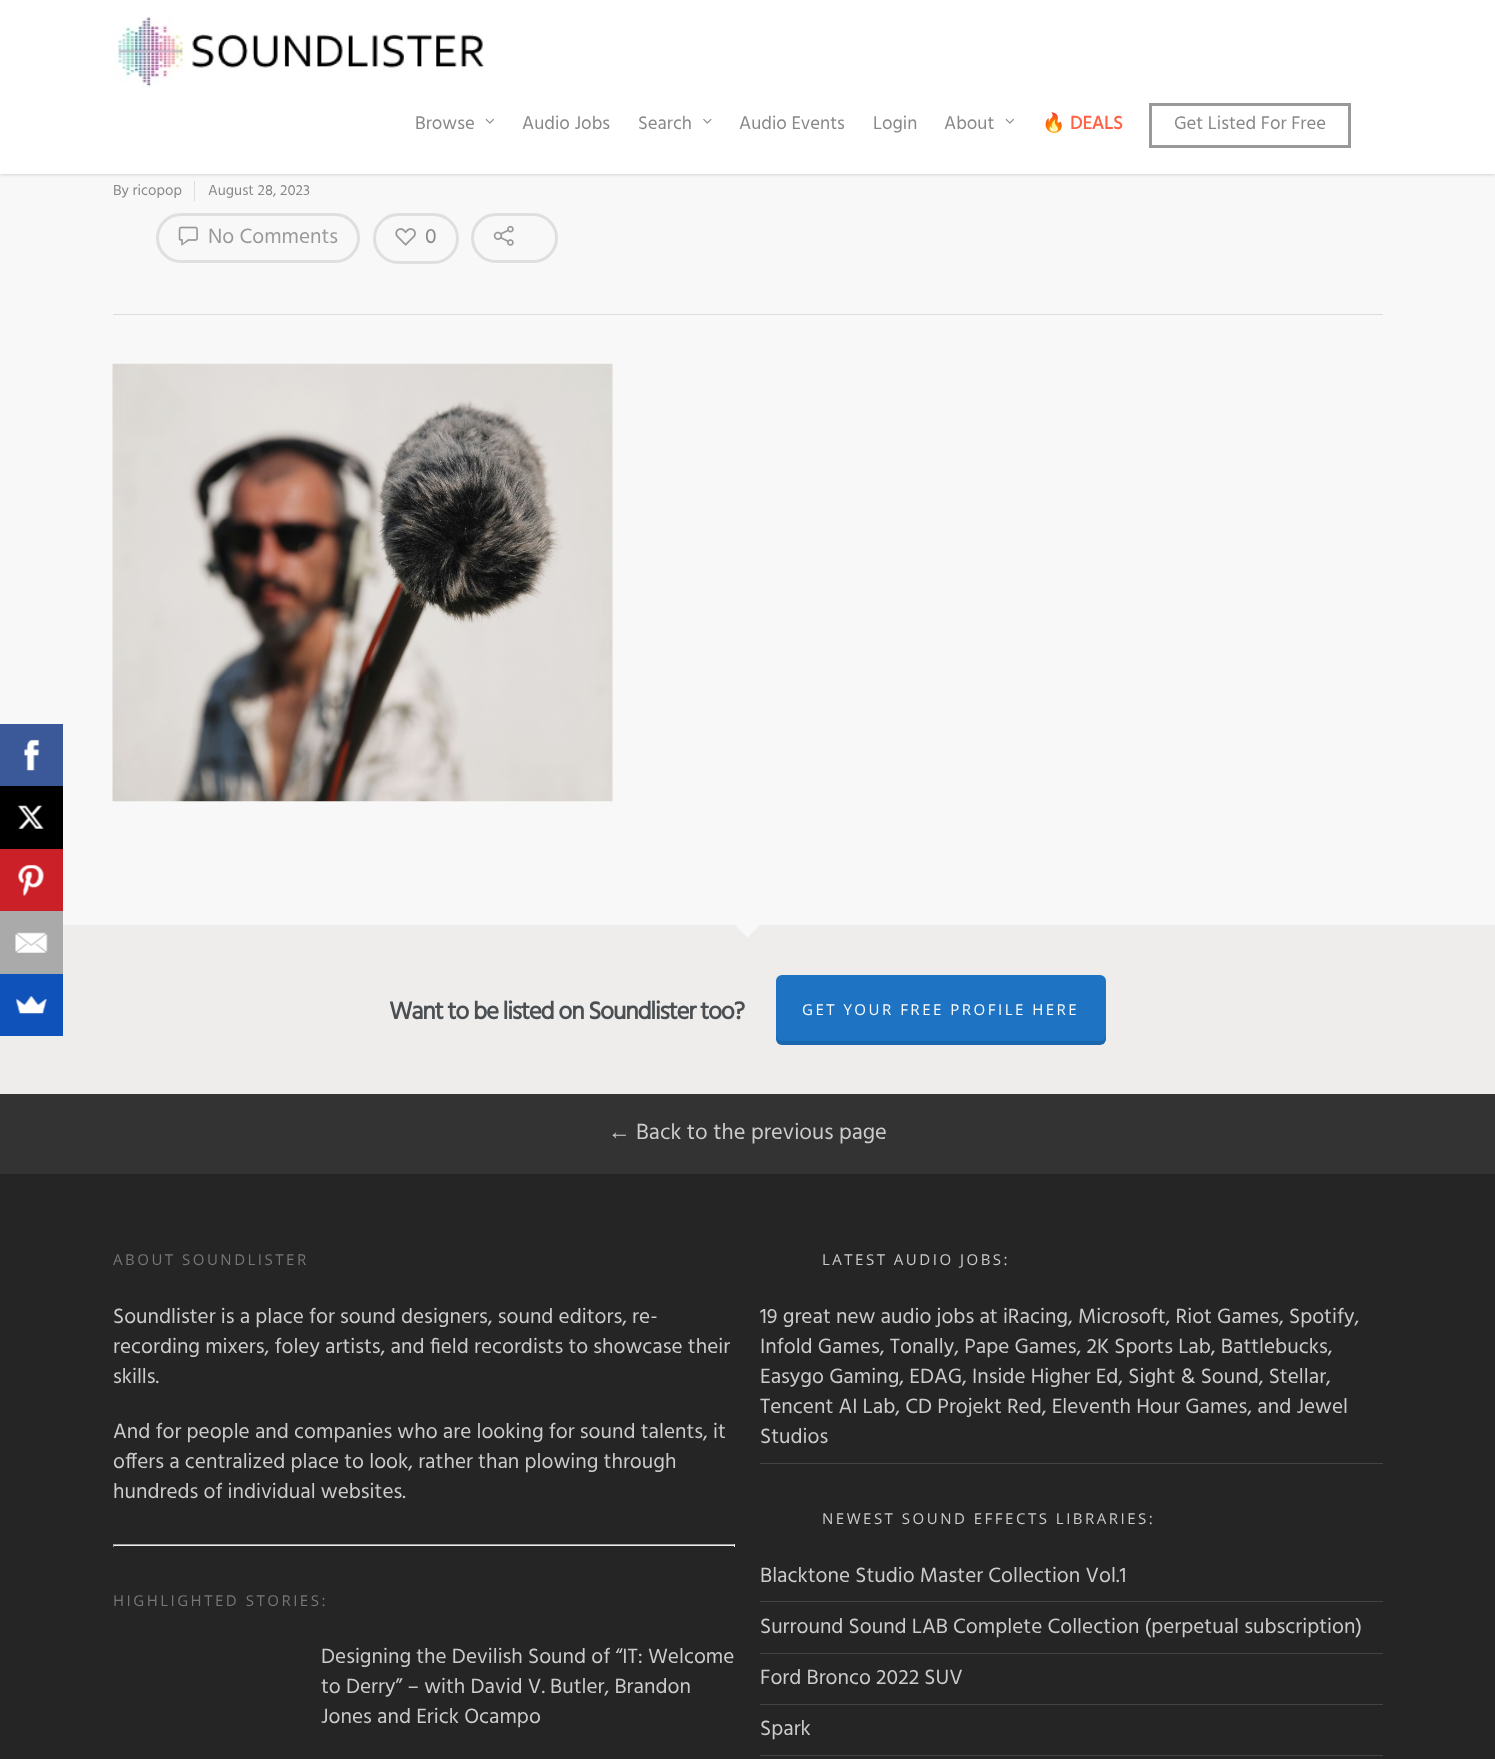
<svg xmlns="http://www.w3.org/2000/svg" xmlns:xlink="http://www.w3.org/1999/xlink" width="1495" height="1759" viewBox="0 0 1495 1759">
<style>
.cls-1{font:18.75px Hind;fill:#888888}
.cls-2{font:18.75px Noto Color Emoji;fill:#888888}
.cls-3{font:bold 18.75px Hind;fill:#ff6347}
.cls-4{font:15px Hind;fill:#888888}
.cls-5{font:21.25px Hind;fill:#999999}
.cls-6{font:21.25px Hind;fill:#888888}
.cls-7{font:bold 25px Hind;letter-spacing:-1.25px;fill:#4b4f52}
.cls-8{font:15px Open Sans;letter-spacing:2.5px;fill:#ffffff}
.cls-9{font:22.5px Liberation Serif;fill:#cccccc}
.cls-10{font:22.5px Hind;fill:#cccccc}
.cls-11{font:15px Open Sans;letter-spacing:2.5px;fill:#777777}
.cls-12{font:21.25px Hind;fill:#cccccc}
.cls-13{font:15px Open Sans;letter-spacing:2.5px;fill:#cccccc}
</style>
<rect width="100%" height="100%" fill="#f8f8f8"/>
<rect fill="#000000" fill-opacity="0.22" filter="blur(2px)" x="0" y="0" width="1495" height="174"/>
<rect fill="#ffffff" x="0" y="0" width="1495" height="174"/>
<image xlink:href="image0.png" x="113" y="17" width="371" height="71"/>
<image xlink:href="image1.png" x="485" y="118" width="9" height="6"/>
<image xlink:href="image2.png" x="703" y="118" width="9" height="6"/>
<image xlink:href="image1.png" x="1005" y="118" width="9" height="6"/>
<rect fill="none" stroke="#999999" stroke-width="3" x="1150.5" y="104.5" width="199" height="42"/>
<rect fill="#3b5998" x="0" y="724" width="63" height="62"/>
<image xlink:href="image3.png" x="24" y="739" width="16" height="32"/>
<rect fill="#000000" x="0" y="786" width="63" height="63"/>
<image xlink:href="image4.png" x="17" y="805" width="27" height="24"/>
<rect fill="#cb2027" x="0" y="849" width="63" height="62"/>
<image xlink:href="image5.png" x="18" y="864" width="26" height="33"/>
<rect fill="#eeedec" x="0" y="925" width="1495" height="169"/>
<rect fill="#aaaaaa" x="0" y="911" width="63" height="63"/>
<image xlink:href="image6.png" x="15" y="932" width="33" height="21"/>
<rect fill="#0f52ba" x="0" y="974" width="63" height="62"/>
<image xlink:href="image7.png" x="16" y="996" width="31" height="18"/>
<rect fill="#dddddd" x="113" y="314" width="1270" height="1"/>
<rect fill="#dddddd" x="194" y="181" width="1" height="20"/>
<rect fill="none" stroke="#dfdfdf" stroke-width="3" x="157.5" y="214.5" width="201" height="47" rx="23.5"/>
<image xlink:href="image8.png" x="178" y="226" width="20" height="20"/>
<rect fill="none" stroke="#dfdfdf" stroke-width="3" x="374.5" y="214.5" width="83" height="48" rx="24"/>
<image xlink:href="image9.png" x="395" y="228" width="21" height="18"/>
<rect fill="none" stroke="#dfdfdf" stroke-width="3" x="472.5" y="214.5" width="84" height="47" rx="23.5"/>
<image xlink:href="image10.png" x="493" y="225" width="21" height="21"/>
<image xlink:href="image11.png" x="112" y="363" width="501" height="439"/>
<rect fill="#252525" x="0" y="1174" width="1495" height="585"/>
<path fill="#f8f8f8" d="M735 925H760L747.5 937.5Z"/>
<rect fill="#1e73c3" x="776" y="975" width="330" height="70" rx="6"/>
<path fill="#000000" fill-opacity="0.1" d="M776 1035V1039C776 1042 779 1045 782 1045H1100C1103 1045 1106 1042 1106 1039V1035C1106 1038 1103 1041 1100 1041H782C779 1041 776 1038 776 1035Z"/>
<rect fill="#333333" x="0" y="1094" width="1495" height="80"/>
<rect fill="#9f9f9f" x="113" y="1544" width="622" height="1"/>
<rect fill="#eeeeee" x="734" y="1544" width="1" height="3"/>
<rect fill="#eeeeee" x="113" y="1545" width="622" height="1"/>
<rect fill="#9f9f9f" x="113" y="1544" width="1" height="3"/>
<rect fill="#444444" x="760" y="1463" width="623" height="1"/>
<rect fill="#444444" x="760" y="1601" width="623" height="1"/>
<rect fill="#444444" x="760" y="1653" width="623" height="1"/>
<rect fill="#444444" x="760" y="1704" width="623" height="1"/>
<rect fill="#444444" x="760" y="1755" width="623" height="1"/>
<text class="cls-1" x="415" y="129">Browse</text>
<text class="cls-1" x="522" y="129">Audio Jobs</text>
<text class="cls-1" x="638" y="129">Search</text>
<text class="cls-1" x="739" y="129">Audio Events</text>
<text class="cls-1" x="873" y="129">Login</text>
<text class="cls-1" x="944" y="129">About</text>
<text class="cls-2" x="1042" y="129">🔥</text>
<text class="cls-3" x="1070" y="129">DEALS</text>
<text class="cls-1" x="1174" y="129">Get Listed For Free</text>
<text class="cls-4" x="113" y="195">By ricopop</text>
<text class="cls-4" x="208" y="195">August 28, 2023</text>
<text class="cls-5" x="208" y="243">No Comments</text>
<text class="cls-6" x="425" y="243">0</text>
<text class="cls-7" x="389" y="1019">Want to be listed on Soundlister too?</text>
<text class="cls-8" x="802" y="1015">GET YOUR FREE PROFILE HERE</text>
<text class="cls-9" x="608" y="1139">←</text>
<text class="cls-10" x="636" y="1139">Back to the previous page</text>
<text class="cls-11" x="113" y="1265">ABOUT SOUNDLISTER</text>
<text class="cls-12"><tspan x="113" y="1323">Soundlister is a place for sound designers, sound editors, re-</tspan><tspan x="113" y="1353">recording mixers, foley artists, and field recordists to showcase their</tspan><tspan x="113" y="1383">skills.</tspan></text>
<text class="cls-12"><tspan x="113" y="1438">And for people and companies who are looking for sound talents, it</tspan><tspan x="113" y="1468">offers a centralized place to look, rather than plowing through</tspan><tspan x="113" y="1498">hundreds of individual websites.</tspan></text>
<text class="cls-11" x="113" y="1606">HIGHLIGHTED STORIES:</text>
<text class="cls-12"><tspan x="321" y="1663">Designing the Devilish Sound of “IT: Welcome</tspan><tspan x="321" y="1693">to Derry” – with David V. Butler, Brandon</tspan><tspan x="321" y="1723">Jones and Erick Ocampo</tspan></text>
<text class="cls-13" x="822" y="1265">LATEST AUDIO JOBS:</text>
<text class="cls-12"><tspan x="760" y="1323">19 great new audio jobs at iRacing, Microsoft, Riot Games, Spotify,</tspan><tspan x="760" y="1353">Infold Games, Tonally, Pape Games, 2K Sports Lab, Battlebucks,</tspan><tspan x="760" y="1383">Easygo Gaming, EDAG, Inside Higher Ed, Sight &amp; Sound, Stellar,</tspan><tspan x="760" y="1413">Tencent AI Lab, CD Projekt Red, Eleventh Hour Games, and Jewel</tspan><tspan x="760" y="1443">Studios</tspan></text>
<text class="cls-13" x="822" y="1524">NEWEST SOUND EFFECTS LIBRARIES:</text>
<text class="cls-12" x="760" y="1582">Blacktone Studio Master Collection Vol.1</text>
<text class="cls-12" x="760" y="1633">Surround Sound LAB Complete Collection (perpetual subscription)</text>
<text class="cls-12" x="760" y="1684">Ford Bronco 2022 SUV</text>
<text class="cls-12" x="760" y="1735">Spark</text>
</svg>
